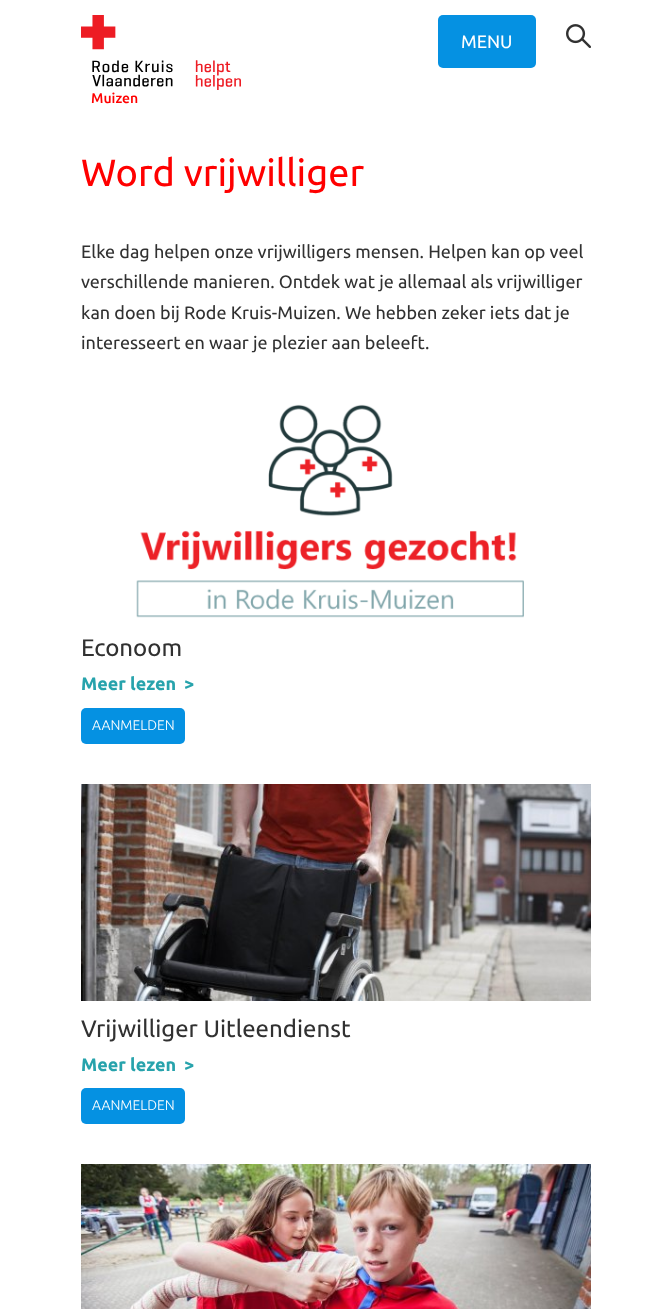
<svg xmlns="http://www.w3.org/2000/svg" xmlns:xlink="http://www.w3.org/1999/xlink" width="671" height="1309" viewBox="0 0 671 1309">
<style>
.cls-1{font:18px Ubuntu;fill:#ffffff}
.cls-2{font:500 14px Ubuntu;fill:#ff0000}
.cls-3{font:38px Ubuntu;fill:#ff0000}
.cls-4{font:18px Ubuntu;fill:#313131}
.cls-5{font:24px Ubuntu;fill:#313131}
.cls-6{font:bold 18px Ubuntu;fill:#27a3ac}
.cls-7{font:300 14px Ubuntu;fill:#ffffff}
</style>
<rect width="100%" height="100%" fill="#ffffff"/>
<rect fill="#0591e2" x="438" y="15" width="98" height="53" rx="5"/>
<image xlink:href="image0.png" x="566" y="24" width="25" height="24"/>
<image xlink:href="image1.png" x="81" y="15" width="160" height="75"/>
<image xlink:href="image2.png" x="136" y="404" width="388" height="214"/>
<rect fill="#0591e2" x="81" y="708" width="104" height="36" rx="5"/>
<image xlink:href="image3.png" x="81" y="784" width="510" height="217"/>
<rect fill="#0591e2" x="81" y="1088" width="104" height="36" rx="5"/>
<image xlink:href="image4.png" x="81" y="1164" width="510" height="145"/>
<text class="cls-1" x="461" y="48">MENU</text>
<text class="cls-2" x="91" y="103">Muizen</text>
<text class="cls-3" x="81" y="186">Word vrijwilliger</text>
<text class="cls-4"><tspan x="81" y="258">Elke dag helpen onze vrijwilligers mensen. Helpen kan op veel</tspan><tspan x="81" y="288">verschillende manieren. Ontdek wat je allemaal als vrijwilliger</tspan><tspan x="81" y="319">kan doen bij Rode Kruis-Muizen. We hebben zeker iets dat je</tspan><tspan x="81" y="349">interesseert en waar je plezier aan beleeft.</tspan></text>
<text class="cls-5" x="81" y="656">Econoom</text>
<text class="cls-6" x="81" y="690">Meer lezen</text>
<text class="cls-6" x="184" y="690">&gt;</text>
<text class="cls-7" x="92" y="730">AANMELDEN</text>
<text class="cls-5" x="81" y="1037">Vrijwilliger Uitleendienst</text>
<text class="cls-6" x="81" y="1071">Meer lezen</text>
<text class="cls-6" x="184" y="1071">&gt;</text>
<text class="cls-7" x="92" y="1110">AANMELDEN</text>
</svg>
